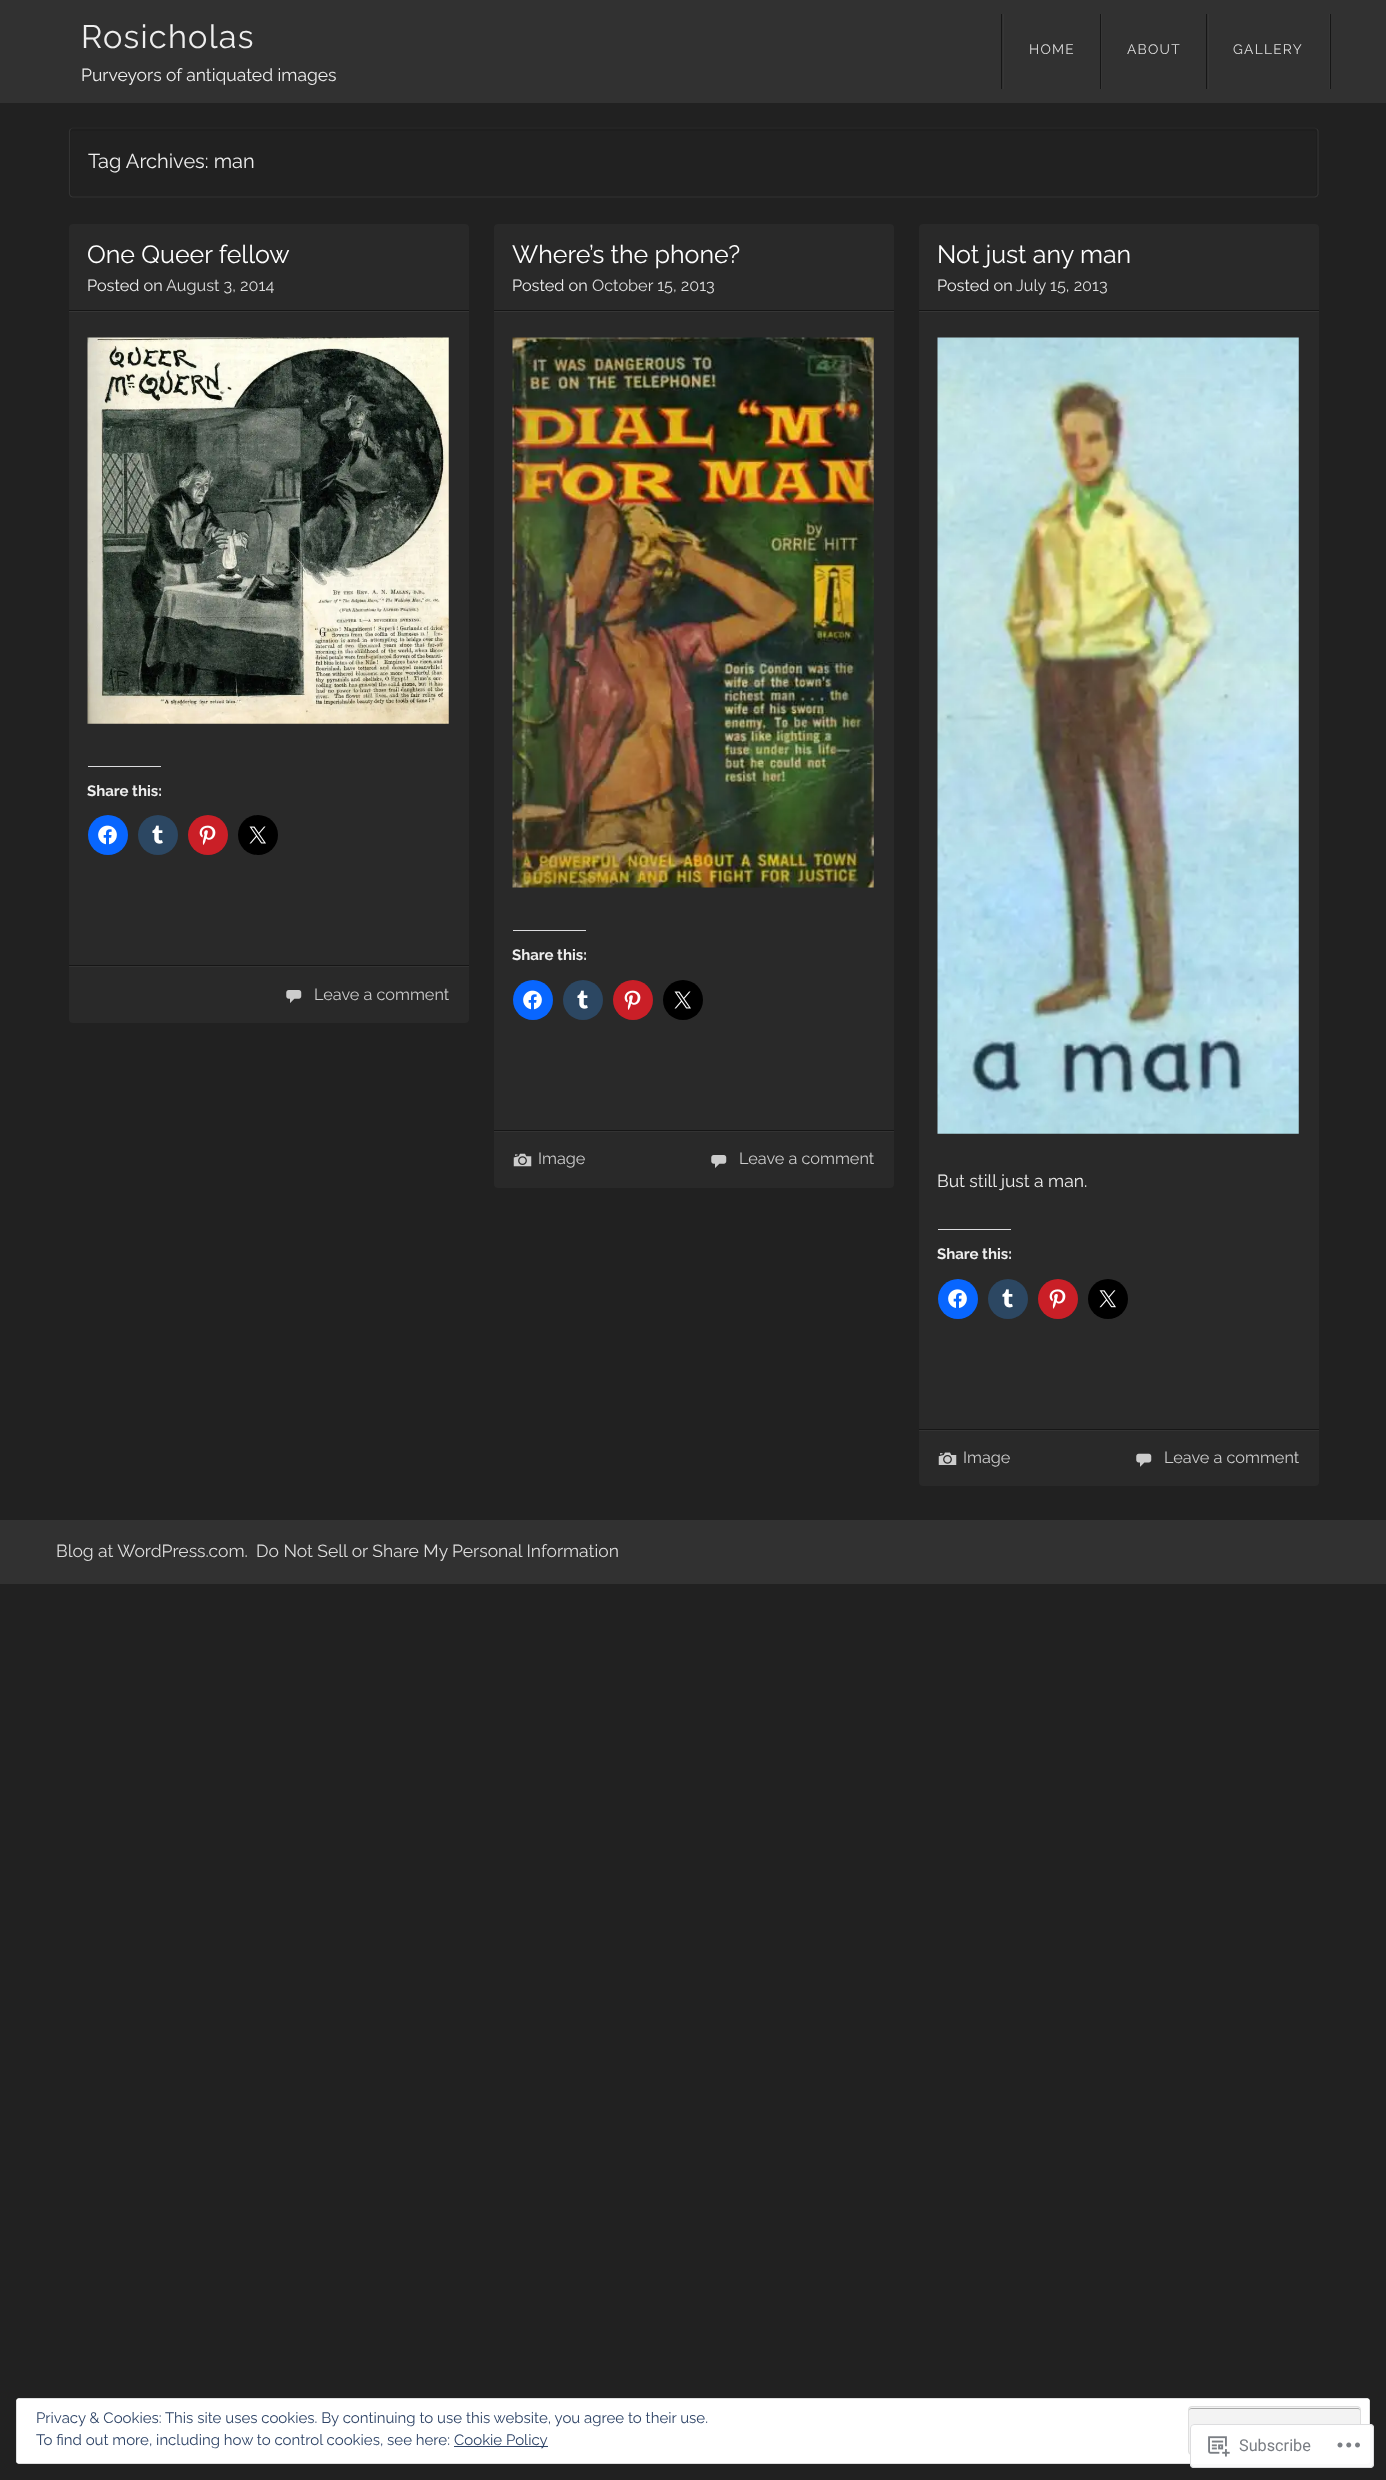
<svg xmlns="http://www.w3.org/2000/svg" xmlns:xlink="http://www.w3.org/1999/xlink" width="1386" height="2480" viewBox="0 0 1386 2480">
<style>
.cls-1{font:32.5px Raleway;letter-spacing:1.25px;fill:#eeeeee}
.cls-2{font:17.5px Raleway;fill:#eeeeee}
.cls-3{font:13.75px Raleway;letter-spacing:1.25px;fill:#dddddd}
.cls-4{font:20px Raleway;fill:#eeeeee}
.cls-5{font:25px Raleway;fill:#ffffff}
.cls-6{font:16.25px Raleway;fill:#eeeeee}
.cls-7{font:16.25px Raleway;fill:#dddddd}
.cls-8{font:bold 15px Raleway;fill:#eeeeee}
.cls-9{font:16.25px Raleway;fill:#cccccc}
.cls-10{font:17.5px Raleway;fill:#dddddd}
.cls-11{font:15px Raleway;fill:#2e4467}
.cls-12{font:16.25px Roboto;fill:#7a7e84}
</style>
<rect width="100%" height="100%" fill="#212121"/>
<rect fill="#313131" x="0" y="0" width="1386" height="103"/>
<rect fill="#161616" x="1330" y="14" width="1" height="75"/>
<rect fill="#161616" x="1001" y="14" width="1" height="75"/>
<rect fill="#363636" x="1003" y="14" width="1" height="75"/>
<rect fill="#161616" x="1100" y="14" width="1" height="75"/>
<rect fill="#363636" x="1101" y="14" width="1" height="75"/>
<rect fill="#161616" x="1206" y="14" width="1" height="75"/>
<rect fill="#363636" x="1329" y="14" width="1" height="75"/>
<rect fill="#363636" x="1208" y="14" width="1" height="75"/>
<path fill="#1e1e1e" d="M72 131H1315L1316 132V185C1316 185 1318 196 1315 196H1316C1317 196 1318 195 1318 194V132C1318 130 1317 129 1316 129H72C71 129 70 130 70 132V194C70 194 70 195 71 196V132Z"/>
<path fill="none" stroke="#292929" stroke-width="1.2" d="M70.5 129L72.5 128H1315L1317 129"/>
<path fill="none" stroke="#333333" stroke-width="1.2" d="M1317 129L1318 131V194L1317 196L1315 197H72.5L70.5 196L69.5 194V131L70.5 129"/>
<rect fill="#292929" x="69" y="224" width="400" height="799" rx="4"/>
<rect fill="#161616" x="69" y="310" width="400" height="1"/>
<rect fill="#363636" x="69" y="311" width="400" height="1"/>
<rect fill="#161616" x="69" y="965" width="400" height="1"/>
<image xlink:href="image0.png" x="87" y="337" width="362" height="387"/>
<rect fill="#dcdcde" x="88" y="766" width="73" height="1"/>
<circle fill="#0866ff" cx="108" cy="835" r="20"/>
<image xlink:href="image1.png" x="98" y="825" width="19" height="20"/>
<circle fill="#2c4762" cx="158" cy="835" r="20"/>
<image xlink:href="image2.png" x="152" y="825" width="11" height="19"/>
<circle fill="#ca1f27" cx="208" cy="835" r="20"/>
<image xlink:href="image3.png" x="199" y="825" width="17" height="20"/>
<circle fill="#000000" cx="258" cy="835" r="20"/>
<image xlink:href="image4.png" x="249" y="826" width="17" height="18"/>
<rect fill="#333333" x="69" y="966" width="400" height="1"/>
<image xlink:href="image5.png" x="286" y="990" width="16" height="13"/>
<rect fill="#292929" x="494" y="224" width="400" height="964" rx="4"/>
<rect fill="#161616" x="494" y="310" width="400" height="1"/>
<rect fill="#363636" x="494" y="311" width="400" height="1"/>
<rect fill="#161616" x="494" y="1130" width="400" height="1"/>
<image xlink:href="image6.png" x="512" y="337" width="362" height="551"/>
<rect fill="#dcdcde" x="513" y="930" width="73" height="1"/>
<circle fill="#0866ff" cx="533" cy="1000" r="20"/>
<image xlink:href="image1.png" x="523" y="990" width="19" height="20"/>
<circle fill="#2c4762" cx="583" cy="1000" r="20"/>
<image xlink:href="image2.png" x="577" y="990" width="11" height="19"/>
<circle fill="#ca1f27" cx="633" cy="1000" r="20"/>
<image xlink:href="image3.png" x="624" y="990" width="17" height="20"/>
<circle fill="#000000" cx="683" cy="1000" r="20"/>
<image xlink:href="image4.png" x="674" y="991" width="17" height="18"/>
<rect fill="#333333" x="494" y="1131" width="400" height="1"/>
<image xlink:href="image7.png" x="513" y="1153" width="19" height="14"/>
<image xlink:href="image5.png" x="711" y="1155" width="16" height="13"/>
<rect fill="#292929" x="919" y="224" width="400" height="1262" rx="4"/>
<rect fill="#161616" x="919" y="310" width="400" height="1"/>
<rect fill="#363636" x="919" y="311" width="400" height="1"/>
<rect fill="#161616" x="919" y="1429" width="400" height="1"/>
<image xlink:href="image8.png" x="937" y="337" width="362" height="797"/>
<rect fill="#dcdcde" x="938" y="1229" width="73" height="1"/>
<circle fill="#0866ff" cx="958" cy="1299" r="20"/>
<image xlink:href="image9.png" x="948" y="1289" width="19" height="19"/>
<circle fill="#2c4762" cx="1008" cy="1299" r="20"/>
<image xlink:href="image10.png" x="1002" y="1289" width="11" height="19"/>
<circle fill="#ca1f27" cx="1058" cy="1299" r="20"/>
<image xlink:href="image11.png" x="1049" y="1289" width="17" height="20"/>
<circle fill="#000000" cx="1108" cy="1299" r="20"/>
<image xlink:href="image12.png" x="1099" y="1290" width="17" height="18"/>
<rect fill="#333333" x="919" y="1430" width="400" height="1"/>
<image xlink:href="image13.png" x="938" y="1452" width="19" height="13"/>
<image xlink:href="image14.png" x="1136" y="1453" width="16" height="14"/>
<rect fill="#313131" x="0" y="1520" width="1386" height="64"/>
<rect fill="#ffffff" x="16" y="2398" width="1354" height="66" rx="4"/>
<path fill="#dedede" fill-rule="evenodd" d="M16 2402V2460C16 2461 16 2462 17 2463V2399ZM20 2398L17 2399H1369L1366 2398ZM1370 2402L1369 2399V2463C1370 2462 1370 2461 1370 2460ZM1366 2464L1369 2463H17L20 2464Z"/>
<rect fill="#f3f3f3" x="1188" y="2406" width="173" height="49" rx="4"/>
<path fill="#aaaaaa" d="M1191 2409H1358C1359 2409 1360 2410 1360 2411C1360 2409 1359 2408 1358 2408H1192C1190 2408 1189 2409 1189 2411C1189 2410 1190 2409 1191 2409Z"/>
<rect fill="none" stroke="#dedede" x="1188.5" y="2406.5" width="172" height="48" rx="3.5"/>
<rect fill="#2e4467" x="454" y="2446" width="94" height="1"/>
<rect fill="#ffffff" fill-opacity="0.98" x="1190" y="2424" width="184" height="44" rx="4"/>
<rect fill="none" stroke="#dcdcde" stroke-opacity="0.98" x="1190.5" y="2424.5" width="183" height="43" rx="3.5"/>
<image xlink:href="image15.png" x="1208" y="2436" width="22" height="21"/>
<image xlink:href="image16.png" x="1337" y="2442" width="23" height="6"/>
<text class="cls-1" x="81" y="48">Rosicholas</text>
<text class="cls-2" x="81" y="81">Purveyors of antiquated images</text>
<text class="cls-3" x="1029" y="54">HOME</text>
<text class="cls-3" x="1127" y="54">ABOUT</text>
<text class="cls-3" x="1233" y="54">GALLERY</text>
<text class="cls-4" x="88" y="168">Tag Archives: man</text>
<text class="cls-5" x="87" y="263">One Queer fellow</text>
<text class="cls-6" x="87" y="291">Posted on</text>
<text class="cls-7" x="166" y="291">August 3, 2014</text>
<text class="cls-8" x="87" y="796">Share this:</text>
<text class="cls-9" x="314" y="1000">Leave a comment</text>
<text class="cls-5" x="512" y="263">Where’s the phone?</text>
<text class="cls-6" x="512" y="291">Posted on</text>
<text class="cls-7" x="592" y="291">October 15, 2013</text>
<text class="cls-8" x="512" y="960">Share this:</text>
<text class="cls-9" x="538" y="1164">Image</text>
<text class="cls-9" x="739" y="1164">Leave a comment</text>
<text class="cls-5" x="937" y="263">Not just any man</text>
<text class="cls-6" x="937" y="291">Posted on</text>
<text class="cls-7" x="1016" y="291">July 15, 2013</text>
<text class="cls-2" x="937" y="1187">But still just a man.</text>
<text class="cls-8" x="937" y="1259">Share this:</text>
<text class="cls-9" x="963" y="1463">Image</text>
<text class="cls-9" x="1164" y="1463">Leave a comment</text>
<text class="cls-10" x="56" y="1557">Blog at WordPress.com.</text>
<text class="cls-10" x="256" y="1557">Do Not Sell or Share My Personal Information</text>
<text class="cls-11"><tspan x="36" y="2423">Privacy &amp; Cookies: This site uses cookies. By continuing to use this website, you agree to their use.</tspan><tspan x="36" y="2445">To find out more, including how to control cookies, see here:</tspan></text>
<text class="cls-11" x="454" y="2445">Cookie Policy</text>
<text class="cls-12" x="1239" y="2451">Subscribe</text>
</svg>
